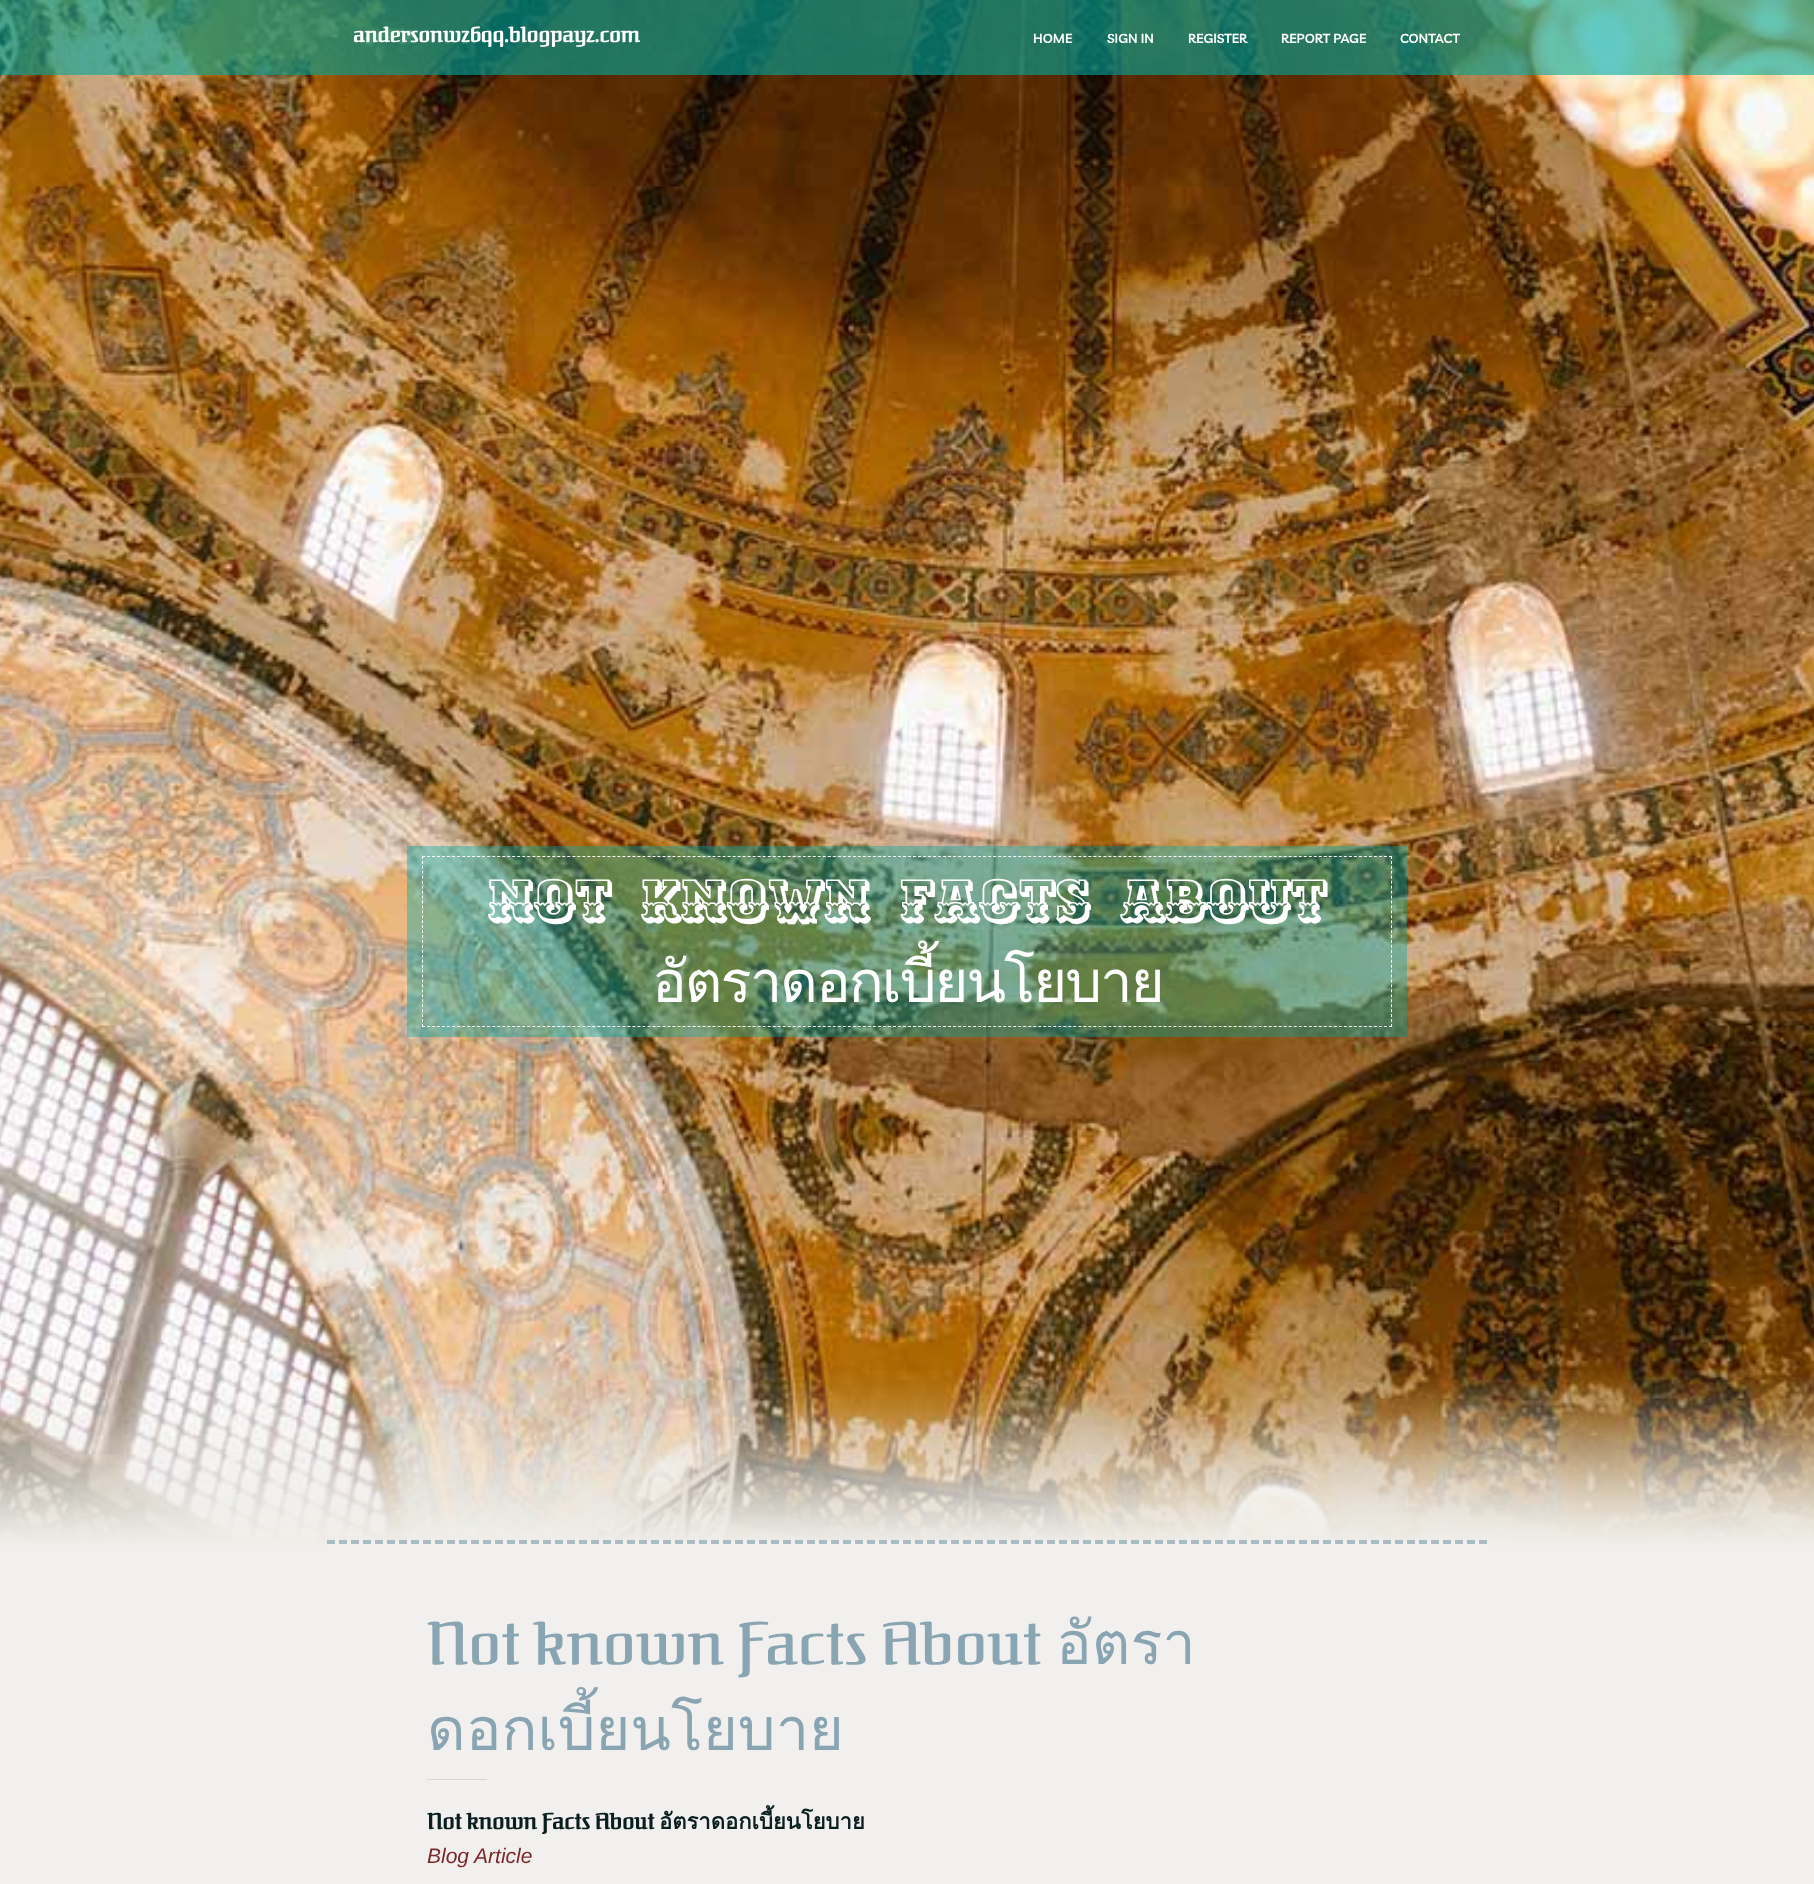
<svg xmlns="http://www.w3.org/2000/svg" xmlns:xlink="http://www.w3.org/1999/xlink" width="1814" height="1884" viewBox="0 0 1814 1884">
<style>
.cls-1{font:bold 21px Federant;fill:#ffffff}
.cls-2{font:600 13px Livvic;fill:#ffffff}
.cls-3{font:58px Ewert;letter-spacing:-2px;fill:#ffffff}
.cls-4{font:58px Loma;letter-spacing:-2px;fill:#ffffff}
.cls-5{font:59.5px Federant;fill:#88a5b1}
.cls-6{font:59.5px Loma;fill:#88a5b1}
.cls-7{font:bold 22px Federant;fill:#091e1e}
.cls-8{font:bold 22px Loma;fill:#091e1e}
.cls-9{font:italic 21px Liberation Sans;fill:#7c292a}
</style>
<rect width="100%" height="100%" fill="#f1f0ef"/>
<image xlink:href="image0.png" x="0" y="0" width="1814" height="1543"/>
<rect fill="#00a99f" fill-opacity="0.6" x="0" y="0" width="1814" height="75"/>
<rect fill="#00a9a6" fill-opacity="0.4" x="407" y="846" width="1000" height="191"/>
<path fill="none" stroke="#ffffff" stroke-dasharray="3 2.01" d="M422 856.5H1392"/>
<path fill="none" stroke="#ffffff" stroke-dasharray="3 1.94" d="M1391.5 856V1027"/>
<path fill="none" stroke="#ffffff" stroke-dasharray="3 2.01" d="M422 1026.5H1392"/>
<path fill="none" stroke="#ffffff" stroke-dasharray="3 1.94" d="M422.5 856V1027"/>
<image xlink:href="image1.png" x="0" y="1370" width="1814" height="175"/>
<rect fill="#f1f0ef" x="327" y="1540" width="1160" height="5"/>
<path fill="none" stroke="#a8bcc4" stroke-width="4" stroke-dasharray="8 4" d="M327 1542H1487"/>
<rect fill="#d7d7d7" x="427" y="1779" width="60" height="1"/>
<text class="cls-1" x="353" y="42">andersonwz6qq.blogpayz.com</text>
<text class="cls-2" x="1033" y="43">HOME</text>
<text class="cls-2" x="1107" y="43">SIGN IN</text>
<text class="cls-2" x="1188" y="43">REGISTER</text>
<text class="cls-2" x="1281" y="43">REPORT PAGE</text>
<text class="cls-2" x="1400" y="43">CONTACT</text>
<text class="cls-3" x="487" y="920" word-spacing="8">NOT KNOWN FACTS ABOUT</text>
<text class="cls-4" x="652" y="1002">อัตราดอกเบี้ยนโยบาย</text>
<text class="cls-5" x="427" y="1664">Not known Facts About</text>
<text class="cls-6" x="1056" y="1664">อัตรา</text>
<text class="cls-6" x="427" y="1750">ดอกเบี้ยนโยบาย</text>
<text class="cls-7" x="427" y="1829">Not known Facts About</text>
<text class="cls-8" x="659" y="1829">อัตราดอกเบี้ยนโยบาย</text>
<text class="cls-9" x="427" y="1863">Blog Article</text>
</svg>
